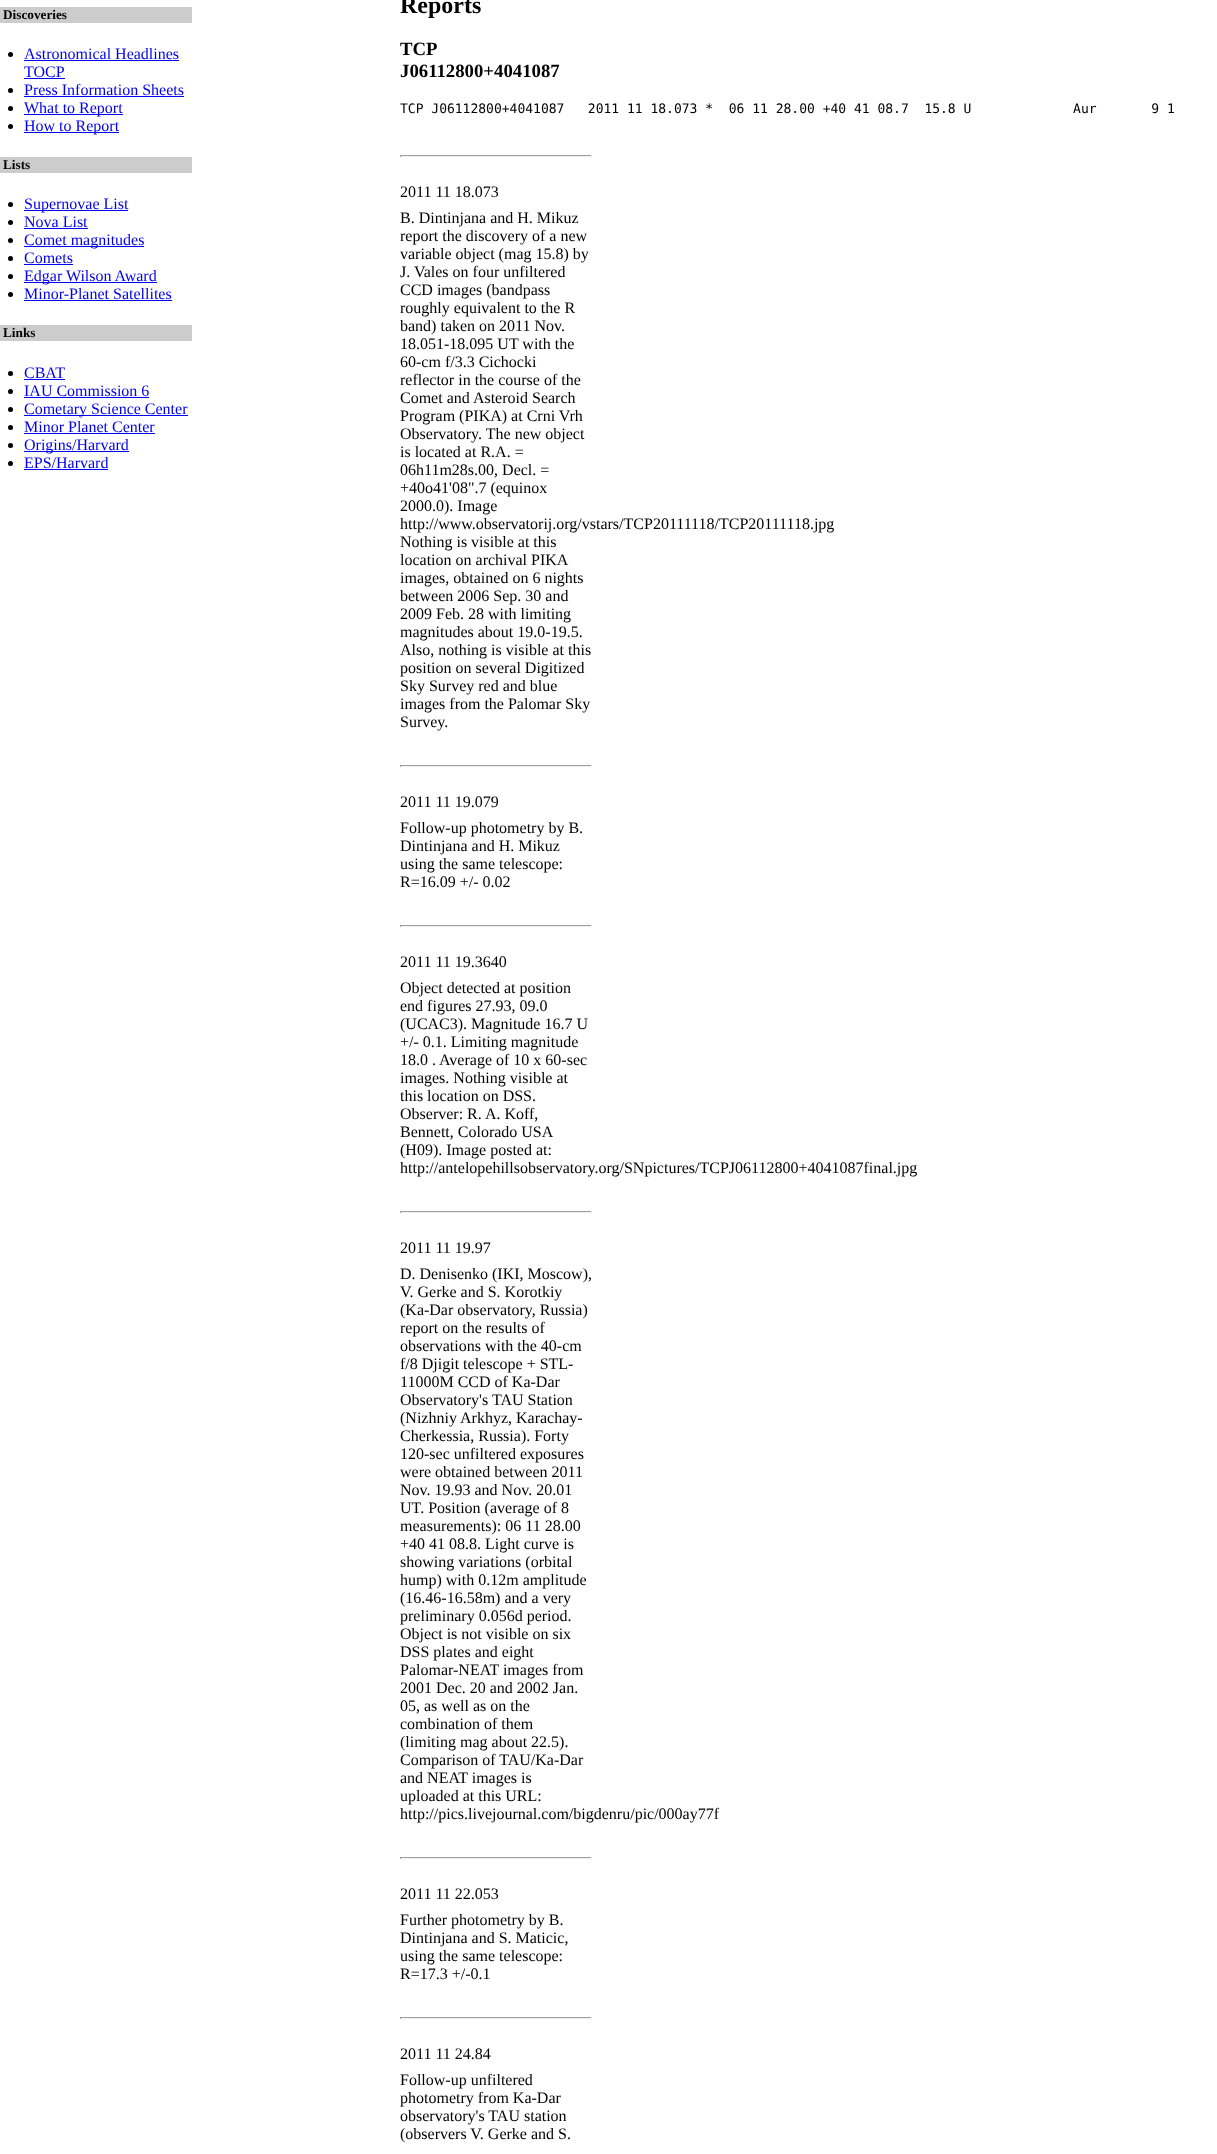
<svg xmlns="http://www.w3.org/2000/svg" xmlns:xlink="http://www.w3.org/1999/xlink" width="1217" height="2154" viewBox="0 0 1217 2154">
<style>
.cls-1{font:bold 13.25px Liberation Serif;fill:#000000}
.cls-2{font:16px Liberation Serif;fill:#0000ee}
.cls-3{font:bold 24px Liberation Serif;fill:#000000}
.cls-4{font:bold 18.75px Liberation Serif;fill:#000000}
.cls-5{font:13px DejaVu Sans Mono;fill:#000000}
.cls-6{font:16px Liberation Serif;fill:#000000}
</style>
<rect width="100%" height="100%" fill="#ffffff"/>
<rect fill="#cccccc" x="0" y="7" width="192" height="16"/>
<circle fill="#000000" cx="10.5" cy="54.5" r="2.5"/>
<rect fill="#0000ee" x="24" y="60" width="155" height="1"/>
<rect fill="#0000ee" x="24" y="78" width="41" height="1"/>
<circle fill="#000000" cx="10.5" cy="90.5" r="2.5"/>
<rect fill="#0000ee" x="24" y="96" width="160" height="1"/>
<circle fill="#000000" cx="10.5" cy="108.5" r="2.5"/>
<rect fill="#0000ee" x="24" y="114" width="99" height="1"/>
<circle fill="#000000" cx="10.5" cy="126.5" r="2.5"/>
<rect fill="#0000ee" x="24" y="132" width="95" height="1"/>
<rect fill="#cccccc" x="0" y="157" width="192" height="16"/>
<circle fill="#000000" cx="10.5" cy="204.5" r="2.5"/>
<rect fill="#0000ee" x="24" y="210" width="104" height="1"/>
<circle fill="#000000" cx="10.5" cy="222.5" r="2.5"/>
<rect fill="#0000ee" x="24" y="228" width="64" height="1"/>
<circle fill="#000000" cx="10.5" cy="240.5" r="2.5"/>
<rect fill="#0000ee" x="24" y="246" width="120" height="1"/>
<circle fill="#000000" cx="10.5" cy="258.5" r="2.5"/>
<rect fill="#0000ee" x="24" y="264" width="49" height="1"/>
<circle fill="#000000" cx="10.5" cy="276.5" r="2.5"/>
<rect fill="#0000ee" x="24" y="282" width="133" height="1"/>
<circle fill="#000000" cx="10.5" cy="294.5" r="2.5"/>
<rect fill="#0000ee" x="24" y="300" width="148" height="1"/>
<rect fill="#cccccc" x="0" y="325" width="192" height="16"/>
<circle fill="#000000" cx="10.5" cy="373.5" r="2.5"/>
<rect fill="#0000ee" x="24" y="379" width="41" height="1"/>
<circle fill="#000000" cx="10.5" cy="391.5" r="2.5"/>
<rect fill="#0000ee" x="24" y="397" width="125" height="1"/>
<circle fill="#000000" cx="10.5" cy="409.5" r="2.5"/>
<rect fill="#0000ee" x="24" y="415" width="164" height="1"/>
<circle fill="#000000" cx="10.5" cy="427.5" r="2.5"/>
<rect fill="#0000ee" x="24" y="433" width="131" height="1"/>
<circle fill="#000000" cx="10.5" cy="445.5" r="2.5"/>
<rect fill="#0000ee" x="24" y="451" width="105" height="1"/>
<circle fill="#000000" cx="10.5" cy="463.5" r="2.5"/>
<rect fill="#0000ee" x="24" y="469" width="84" height="1"/>
<rect fill="#9f9f9f" x="400" y="155" width="192" height="1"/>
<rect fill="#eeeeee" x="591" y="155" width="1" height="2"/>
<rect fill="#eeeeee" x="400" y="156" width="192" height="1"/>
<rect fill="#9f9f9f" x="400" y="155" width="1" height="2"/>
<rect fill="#9f9f9f" x="400" y="765" width="192" height="1"/>
<rect fill="#eeeeee" x="591" y="765" width="1" height="2"/>
<rect fill="#eeeeee" x="400" y="766" width="192" height="1"/>
<rect fill="#9f9f9f" x="400" y="765" width="1" height="2"/>
<rect fill="#9f9f9f" x="400" y="925" width="192" height="1"/>
<rect fill="#eeeeee" x="591" y="925" width="1" height="2"/>
<rect fill="#eeeeee" x="400" y="926" width="192" height="1"/>
<rect fill="#9f9f9f" x="400" y="925" width="1" height="2"/>
<rect fill="#9f9f9f" x="400" y="1211" width="192" height="1"/>
<rect fill="#eeeeee" x="591" y="1211" width="1" height="2"/>
<rect fill="#eeeeee" x="400" y="1212" width="192" height="1"/>
<rect fill="#9f9f9f" x="400" y="1211" width="1" height="2"/>
<rect fill="#9f9f9f" x="400" y="1857" width="192" height="1"/>
<rect fill="#eeeeee" x="591" y="1857" width="1" height="2"/>
<rect fill="#eeeeee" x="400" y="1858" width="192" height="1"/>
<rect fill="#9f9f9f" x="400" y="1857" width="1" height="2"/>
<rect fill="#9f9f9f" x="400" y="2017" width="192" height="1"/>
<rect fill="#eeeeee" x="591" y="2017" width="1" height="2"/>
<rect fill="#eeeeee" x="400" y="2018" width="192" height="1"/>
<rect fill="#9f9f9f" x="400" y="2017" width="1" height="2"/>
<text class="cls-1" x="3" y="19">Discoveries</text>
<text class="cls-2"><tspan x="24" y="59">Astronomical Headlines</tspan><tspan x="24" y="77">TOCP</tspan><tspan x="24" y="95">Press Information Sheets</tspan><tspan x="24" y="113">What to Report</tspan><tspan x="24" y="131">How to Report</tspan></text>
<text class="cls-1" x="3" y="169">Lists</text>
<text class="cls-2"><tspan x="24" y="209">Supernovae List</tspan><tspan x="24" y="227">Nova List</tspan><tspan x="24" y="245">Comet magnitudes</tspan><tspan x="24" y="263">Comets</tspan><tspan x="24" y="281">Edgar Wilson Award</tspan><tspan x="24" y="299">Minor-Planet Satellites</tspan></text>
<text class="cls-1" x="3" y="337">Links</text>
<text class="cls-2"><tspan x="24" y="378">CBAT</tspan><tspan x="24" y="396">IAU Commission 6</tspan><tspan x="24" y="414">Cometary Science Center</tspan><tspan x="24" y="432">Minor Planet Center</tspan><tspan x="24" y="450">Origins/Harvard</tspan><tspan x="24" y="468">EPS/Harvard</tspan></text>
<text class="cls-3" x="400" y="13">Reports</text>
<text class="cls-4"><tspan x="400" y="55">TCP</tspan><tspan x="400" y="77">J06112800+4041087</tspan></text>
<text class="cls-5" xml:space="preserve" x="400" y="113">TCP J06112800+4041087   2011 11 18.073 *  06 11 28.00 +40 41 08.7  15.8 U             Aur       9 1</text>
<text class="cls-6"><tspan x="400" y="197">2011 11 18.073</tspan><tspan x="400" y="223">B. Dintinjana and H. Mikuz</tspan><tspan x="400" y="241">report the discovery of a new</tspan><tspan x="400" y="259">variable object (mag 15.8) by</tspan><tspan x="400" y="277">J. Vales on four unfiltered</tspan><tspan x="400" y="295">CCD images (bandpass</tspan><tspan x="400" y="313">roughly equivalent to the R</tspan><tspan x="400" y="331">band) taken on 2011 Nov.</tspan><tspan x="400" y="349">18.051-18.095 UT with the</tspan><tspan x="400" y="367">60-cm f/3.3 Cichocki</tspan><tspan x="400" y="385">reflector in the course of the</tspan><tspan x="400" y="403">Comet and Asteroid Search</tspan><tspan x="400" y="421">Program (PIKA) at Crni Vrh</tspan><tspan x="400" y="439">Observatory. The new object</tspan><tspan x="400" y="457">is located at R.A. =</tspan><tspan x="400" y="475">06h11m28s.00, Decl. =</tspan><tspan x="400" y="493">+40o41'08".7 (equinox</tspan><tspan x="400" y="511">2000.0). Image</tspan><tspan x="400" y="529">http://www.observatorij.org/vstars/TCP20111118/TCP20111118.jpg</tspan><tspan x="400" y="547">Nothing is visible at this</tspan><tspan x="400" y="565">location on archival PIKA</tspan><tspan x="400" y="583">images, obtained on 6 nights</tspan><tspan x="400" y="601">between 2006 Sep. 30 and</tspan><tspan x="400" y="619">2009 Feb. 28 with limiting</tspan><tspan x="400" y="637">magnitudes about 19.0-19.5.</tspan><tspan x="400" y="655">Also, nothing is visible at this</tspan><tspan x="400" y="673">position on several Digitized</tspan><tspan x="400" y="691">Sky Survey red and blue</tspan><tspan x="400" y="709">images from the Palomar Sky</tspan><tspan x="400" y="727">Survey.</tspan></text>
<text class="cls-6"><tspan x="400" y="807">2011 11 19.079</tspan><tspan x="400" y="833">Follow-up photometry by B.</tspan><tspan x="400" y="851">Dintinjana and H. Mikuz</tspan><tspan x="400" y="869">using the same telescope:</tspan><tspan x="400" y="887">R=16.09 +/- 0.02</tspan></text>
<text class="cls-6"><tspan x="400" y="967">2011 11 19.3640</tspan><tspan x="400" y="993">Object detected at position</tspan><tspan x="400" y="1011">end figures 27.93, 09.0</tspan><tspan x="400" y="1029">(UCAC3). Magnitude 16.7 U</tspan><tspan x="400" y="1047">+/- 0.1. Limiting magnitude</tspan><tspan x="400" y="1065">18.0 .</tspan></text>
<text class="cls-6" x="439" y="1065">Average of 10 x 60-sec</text>
<text class="cls-6"><tspan x="400" y="1083">images. Nothing visible at</tspan><tspan x="400" y="1101">this location on DSS.</tspan><tspan x="400" y="1119">Observer: R. A. Koff,</tspan><tspan x="400" y="1137">Bennett, Colorado USA</tspan><tspan x="400" y="1155">(H09). Image posted at:</tspan><tspan x="400" y="1173">http://antelopehillsobservatory.org/SNpictures/TCPJ06112800+4041087final.jpg</tspan></text>
<text class="cls-6"><tspan x="400" y="1253">2011 11 19.97</tspan><tspan x="400" y="1279">D. Denisenko (IKI, Moscow),</tspan><tspan x="400" y="1297">V. Gerke and S. Korotkiy</tspan><tspan x="400" y="1315">(Ka-Dar observatory, Russia)</tspan><tspan x="400" y="1333">report on the results of</tspan><tspan x="400" y="1351">observations with the 40-cm</tspan><tspan x="400" y="1369">f/8 Djigit telescope + STL-</tspan><tspan x="400" y="1387">11000M CCD of Ka-Dar</tspan><tspan x="400" y="1405">Observatory's TAU Station</tspan><tspan x="400" y="1423">(Nizhniy Arkhyz, Karachay-</tspan><tspan x="400" y="1441">Cherkessia, Russia). Forty</tspan><tspan x="400" y="1459">120-sec unfiltered exposures</tspan><tspan x="400" y="1477">were obtained between 2011</tspan><tspan x="400" y="1495">Nov. 19.93 and Nov. 20.01</tspan><tspan x="400" y="1513">UT. Position (average of 8</tspan><tspan x="400" y="1531">measurements): 06 11 28.00</tspan><tspan x="400" y="1549">+40 41 08.8. Light curve is</tspan><tspan x="400" y="1567">showing variations (orbital</tspan><tspan x="400" y="1585">hump) with 0.12m amplitude</tspan><tspan x="400" y="1603">(16.46-16.58m) and a very</tspan><tspan x="400" y="1621">preliminary 0.056d period.</tspan><tspan x="400" y="1639">Object is not visible on six</tspan><tspan x="400" y="1657">DSS plates and eight</tspan><tspan x="400" y="1675">Palomar-NEAT images from</tspan><tspan x="400" y="1693">2001 Dec. 20 and 2002 Jan.</tspan><tspan x="400" y="1711">05, as well as on the</tspan><tspan x="400" y="1729">combination of them</tspan><tspan x="400" y="1747">(limiting mag about 22.5).</tspan><tspan x="400" y="1765">Comparison of TAU/Ka-Dar</tspan><tspan x="400" y="1783">and NEAT images is</tspan><tspan x="400" y="1801">uploaded at this URL:</tspan><tspan x="400" y="1819">http://pics.livejournal.com/bigdenru/pic/000ay77f</tspan></text>
<text class="cls-6"><tspan x="400" y="1899">2011 11 22.053</tspan><tspan x="400" y="1925">Further photometry by B.</tspan><tspan x="400" y="1943">Dintinjana and S. Maticic,</tspan><tspan x="400" y="1961">using the same telescope:</tspan><tspan x="400" y="1979">R=17.3 +/-0.1</tspan></text>
<text class="cls-6"><tspan x="400" y="2059">2011 11 24.84</tspan><tspan x="400" y="2085">Follow-up unfiltered</tspan><tspan x="400" y="2103">photometry from Ka-Dar</tspan><tspan x="400" y="2121">observatory's TAU station</tspan><tspan x="400" y="2139">(observers V. Gerke and S.</tspan></text>
</svg>
